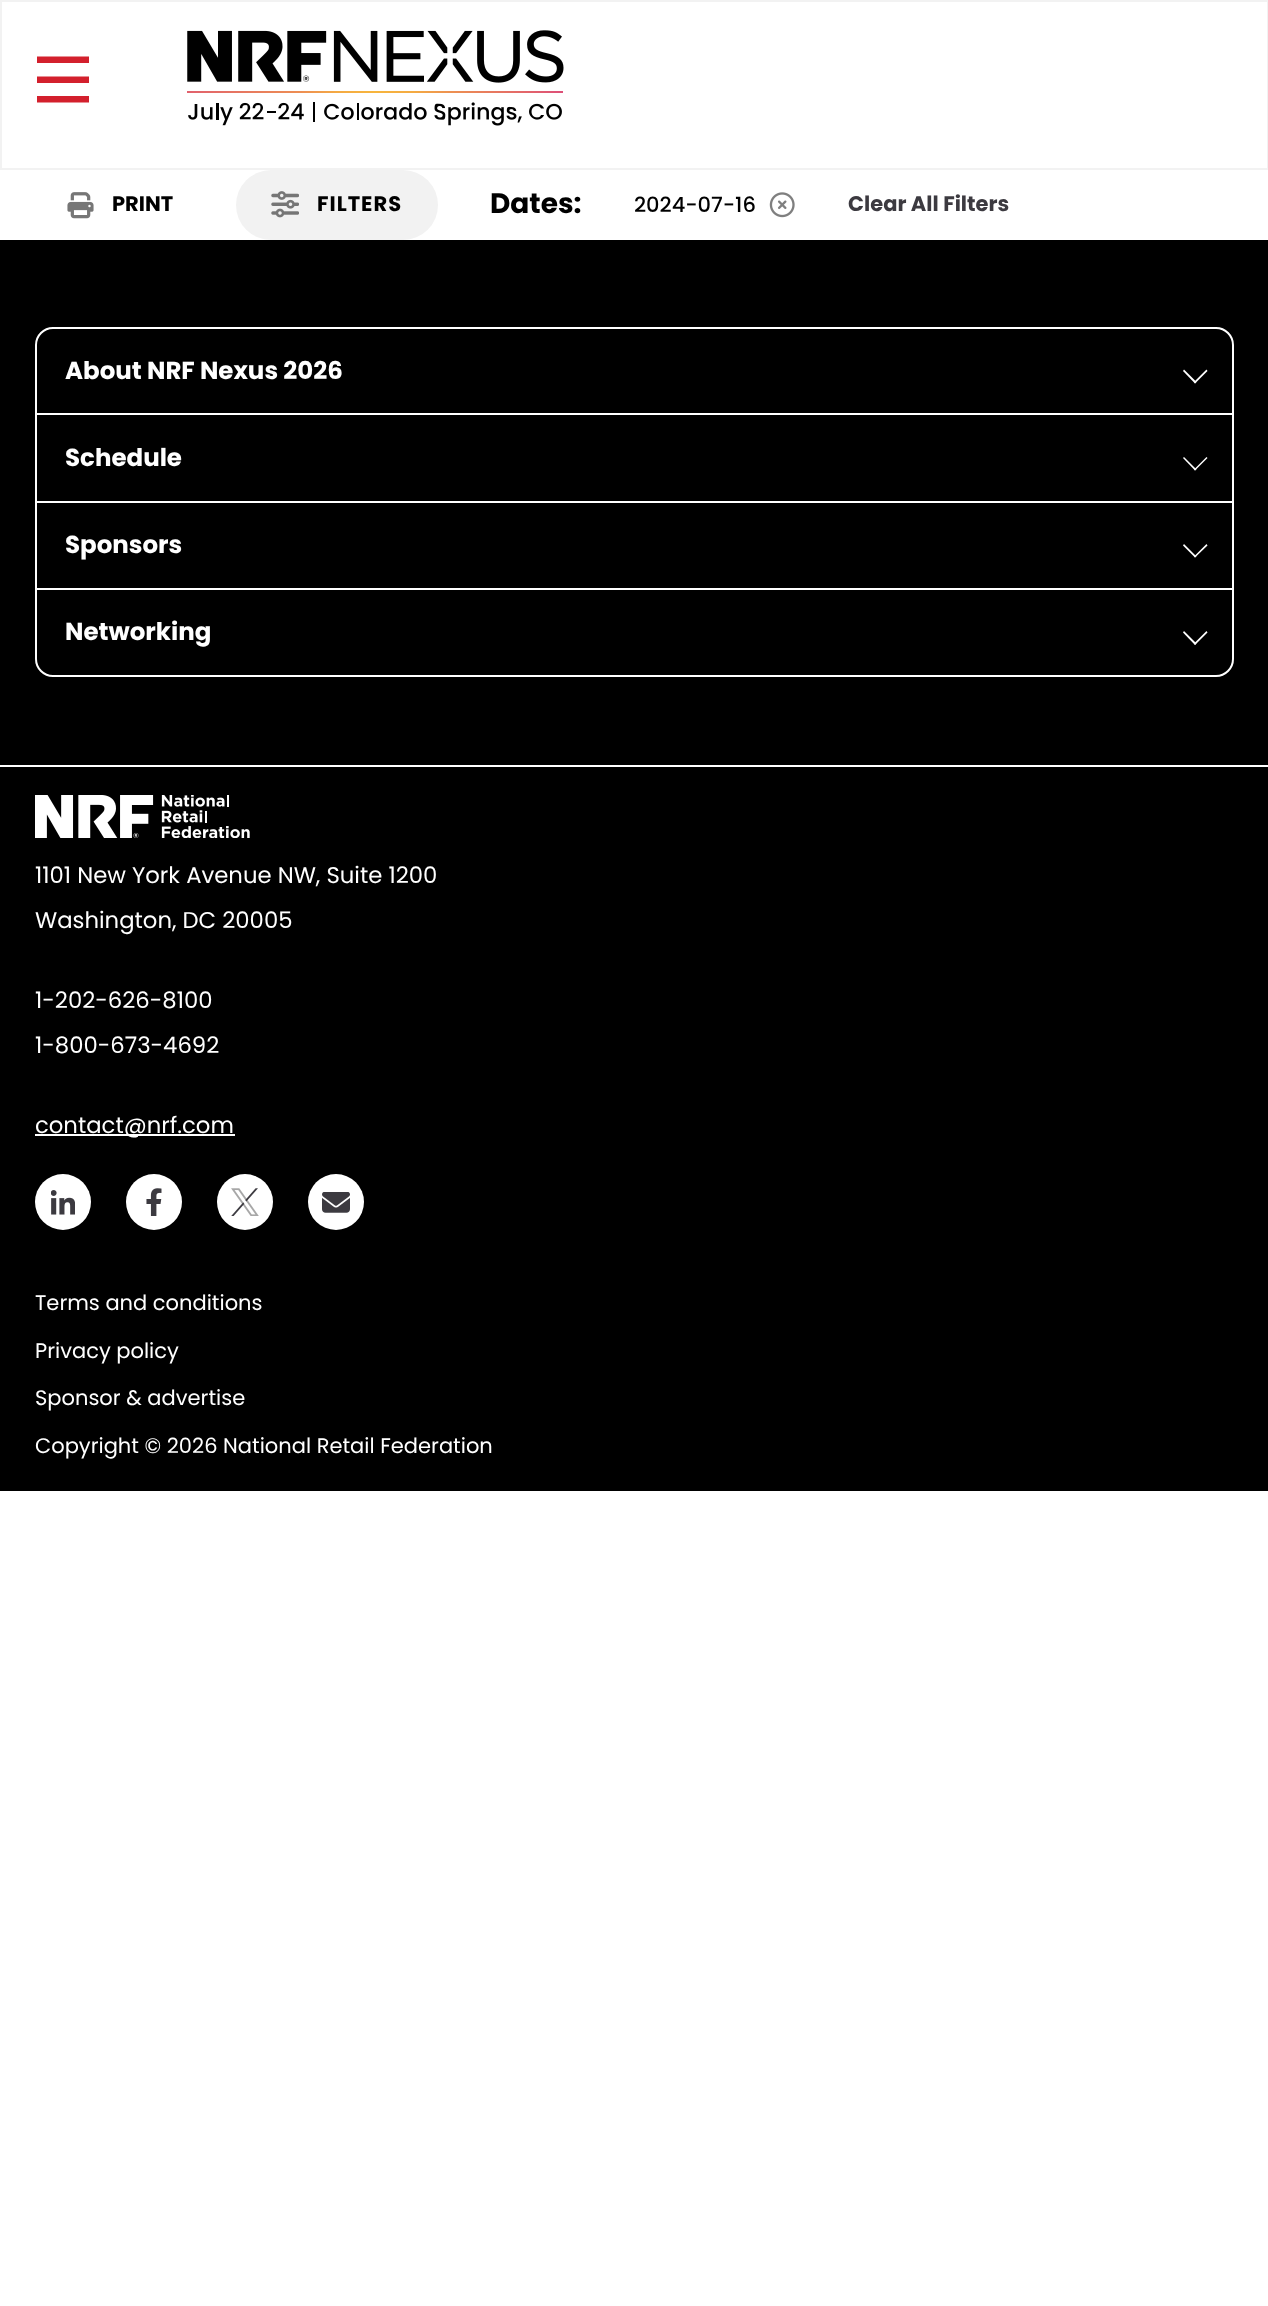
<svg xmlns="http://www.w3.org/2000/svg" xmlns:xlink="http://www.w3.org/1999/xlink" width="1268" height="2306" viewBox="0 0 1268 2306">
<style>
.cls-1{font:bold 21px Poppins;fill:#000000}
.cls-2{font:bold 21px Poppins;letter-spacing:1px;fill:#000000}
.cls-3{font:bold 28px Poppins;fill:#000000}
.cls-4{font:500 21px Poppins;fill:#000000}
.cls-5{font:bold 21px Poppins;fill:#3c3a40}
.cls-6{font:bold 24.5px Poppins;fill:#ffffff}
.cls-7{font:22.75px Poppins;fill:#ffffff}
.cls-8{font:21px Poppins;fill:#ffffff}
</style>
<defs>
<clipPath id="clip1"><rect x="37" y="44" width="52" height="72"/></clipPath>
</defs>
<rect width="100%" height="100%" fill="#ffffff"/>
<rect fill="none" stroke="#f2f2f2" stroke-width="2" x="1" y="1" width="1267" height="168"/>
<rect fill="#d3202d" x="37" y="57" width="52" height="5"/>
<g clip-path="url(#clip1)">
<path fill="none" stroke="#d3202d" stroke-width="1.1" d="M37 62.5H89V57H37Z"/>
</g>
<rect fill="#d3202d" x="37" y="77" width="52" height="5"/>
<g clip-path="url(#clip1)">
<path fill="none" stroke="#d3202d" stroke-width="1.1" d="M37 82.5H89V77H37Z"/>
</g>
<rect fill="#d3202d" x="37" y="97" width="52" height="5"/>
<g clip-path="url(#clip1)">
<path fill="none" stroke="#d3202d" stroke-width="1.1" d="M37 102H89V96.5H37Z"/>
</g>
<image xlink:href="image0.png" x="187" y="30" width="377" height="96"/>
<image xlink:href="image1.png" x="67" y="192" width="27" height="27"/>
<rect fill="#f2f2f2" x="236" y="170" width="202" height="70" rx="35"/>
<image xlink:href="image2.png" x="271" y="191" width="28" height="27"/>
<image xlink:href="image3.png" x="769" y="192" width="26" height="26"/>
<rect fill="#000000" x="0" y="240" width="1268" height="1251"/>
<rect fill="none" stroke="#ffffff" stroke-width="2" x="36" y="328" width="1197" height="348" rx="17"/>
<path fill="#ffffff" d="M1206.5 369.5L1207.5 371L1195 383.5L1194 382Z"/>
<path fill="#ffffff" d="M1184 369.5L1196.5 382L1195 383.5L1183 371Z"/>
<rect fill="#ffffff" x="37" y="413" width="1195" height="2"/>
<path fill="#ffffff" d="M1206.5 457L1207.5 458L1195 470.5L1194 469.5Z"/>
<path fill="#ffffff" d="M1184 457L1196.5 469.5L1195 470.5L1183 458Z"/>
<rect fill="#ffffff" x="37" y="501" width="1195" height="2"/>
<path fill="#ffffff" d="M1206.5 544L1207.5 545.5L1195 557.5L1194 556.5Z"/>
<path fill="#ffffff" d="M1184 544L1196.5 556.5L1195 557.5L1183 545.5Z"/>
<rect fill="#ffffff" x="37" y="588" width="1195" height="2"/>
<path fill="#ffffff" d="M1206.5 631L1207.5 632.5L1195 645L1194 643.5Z"/>
<path fill="#ffffff" d="M1184 631L1196.5 643.5L1195 645L1183 632.5Z"/>
<rect fill="#ffffff" x="0" y="765" width="1268" height="2"/>
<image xlink:href="image4.png" x="35" y="795" width="215" height="43"/>
<rect fill="#ffffff" x="35" y="1134" width="200" height="2"/>
<circle fill="#ffffff" cx="63" cy="1202" r="28"/>
<image xlink:href="image5.png" x="51" y="1190" width="24" height="25"/>
<circle fill="#ffffff" cx="154" cy="1202" r="28"/>
<image xlink:href="image6.png" x="146" y="1188" width="16" height="28"/>
<circle fill="#ffffff" cx="245" cy="1202" r="28"/>
<image xlink:href="image7.png" x="231" y="1188" width="28" height="28"/>
<circle fill="#ffffff" cx="336" cy="1202" r="28"/>
<image xlink:href="image8.png" x="322" y="1192" width="28" height="21"/>
<text class="cls-1" x="112" y="211">PRINT</text>
<text class="cls-2" x="317" y="211">FILTERS</text>
<text class="cls-3" x="490" y="213">Dates:</text>
<text class="cls-4" x="634" y="212">2024-07-16</text>
<text class="cls-5" x="848" y="211">Clear All Filters</text>
<text class="cls-6" x="65" y="379">About NRF Nexus 2026</text>
<text class="cls-6" x="65" y="466">Schedule</text>
<text class="cls-6" x="65" y="553">Sponsors</text>
<text class="cls-6" x="65" y="640">Networking</text>
<text class="cls-7"><tspan x="35" y="883">1101 New York Avenue NW, Suite 1200</tspan><tspan x="35" y="928">Washington, DC 20005</tspan></text>
<text class="cls-7"><tspan x="35" y="1008">1-202-626-8100</tspan><tspan x="35" y="1053">1-800-673-4692</tspan></text>
<text class="cls-7" x="35" y="1133">contact@nrf.com</text>
<text class="cls-8" x="35" y="1310">Terms and conditions</text>
<text class="cls-8" x="35" y="1358">Privacy policy</text>
<text class="cls-8" x="35" y="1405">Sponsor &amp; advertise</text>
<text class="cls-8" x="35" y="1453">Copyright © 2026 National Retail Federation</text>
</svg>
